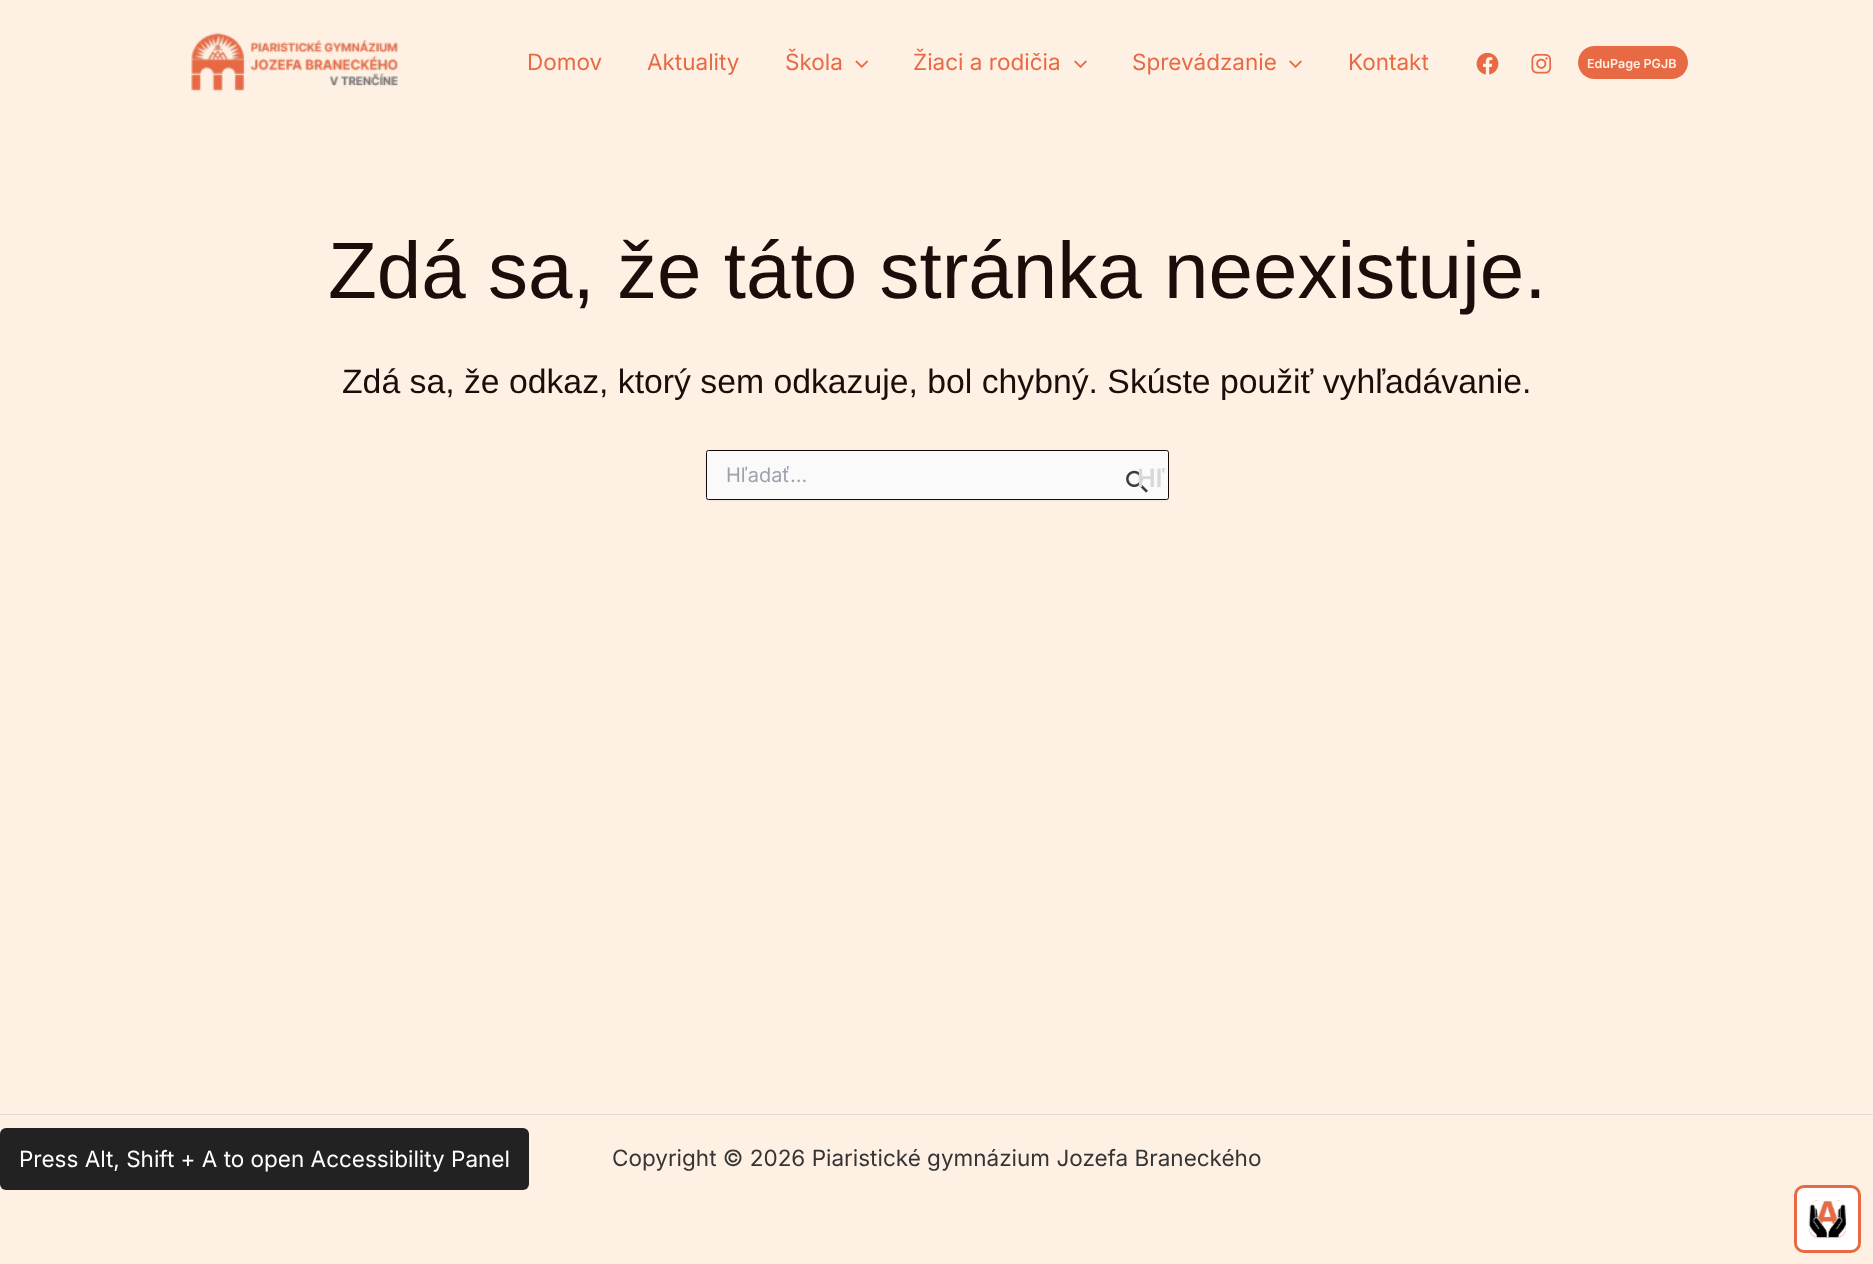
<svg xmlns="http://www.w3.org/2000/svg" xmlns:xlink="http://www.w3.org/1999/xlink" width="1873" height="1264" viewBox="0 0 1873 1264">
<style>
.cls-1{font:22.5px Inter;fill:#ffffff}
.cls-2{font:22.5px Inter;fill:#e86a44}
.cls-3{font:600 12.5px Inter;fill:#fef1e4}
.cls-4{font:80px Liberation Sans;fill:#1c0d0a}
.cls-5{font:33.75px Liberation Sans;fill:#1c0d0a}
.cls-6{font:20px Inter;fill:#9ca3af}
.cls-7{font:600 25px Inter;fill:#d8d8d8}
.cls-8{font:22.5px Inter;fill:#353535}
</style>
<rect width="100%" height="100%" fill="#fef1e4"/>
<rect fill="#222222" x="0" y="1128" width="529" height="62" rx="6"/>
<image xlink:href="image0.png" x="191" y="32" width="207" height="60"/>
<image xlink:href="image1.png" x="855" y="60" width="14" height="8"/>
<image xlink:href="image2.png" x="1074" y="60" width="13" height="8"/>
<image xlink:href="image2.png" x="1289" y="60" width="13" height="8"/>
<image xlink:href="image3.png" x="1476" y="53" width="23" height="22"/>
<image xlink:href="image4.png" x="1531" y="54" width="21" height="20"/>
<rect fill="#e86a44" x="1578" y="46" width="110" height="33" rx="16.5"/>
<rect fill="#000000" fill-opacity="0.05" filter="blur(1px)" x="706" y="451" width="463" height="50" rx="2.5"/>
<rect fill="#fafafa" stroke="#140b06" x="706.5" y="450.5" width="462" height="49" rx="2"/>
<image xlink:href="image5.png" x="1126" y="470" width="22" height="23"/>
<rect fill="#e5d7d1" x="0" y="1114" width="1873" height="1"/>
<rect fill="#ffffff" stroke="#e86a44" stroke-width="3" x="1795.5" y="1186.5" width="64" height="65" rx="8.5"/>
<rect fill="#000000" fill-opacity="0.05" filter="blur(1px)" x="1809" y="1201" width="37" height="38" rx="10"/>
<rect fill="#e86a44" x="1809" y="1200" width="37" height="38" rx="10"/>
<image xlink:href="image6.png" x="1808" y="1200" width="39" height="38"/>
<text class="cls-1" x="19" y="1167">Press Alt, Shift + A to open Accessibility Panel</text>
<text class="cls-2" x="527" y="70">Domov</text>
<text class="cls-2" x="647" y="70">Aktuality</text>
<text class="cls-2" x="785" y="70">Škola</text>
<text class="cls-2" x="913" y="70">Žiaci a rodičia</text>
<text class="cls-2" x="1132" y="70">Sprevádzanie</text>
<text class="cls-2" x="1348" y="70">Kontakt</text>
<text class="cls-3" x="1587" y="68">EduPage PGJB</text>
<text class="cls-4" x="328" y="298">Zdá sa, že táto stránka neexistuje.</text>
<text class="cls-5" x="342" y="393">Zdá sa, že odkaz, ktorý sem odkazuje, bol chybný. Skúste použiť vyhľadávanie.</text>
<text class="cls-6" x="726" y="482">Hľadať...</text>
<text class="cls-7" x="1137" y="487">Hľ</text>
<text class="cls-8" x="612" y="1166">Copyright © 2026 Piaristické gymnázium Jozefa Braneckého</text>
</svg>
